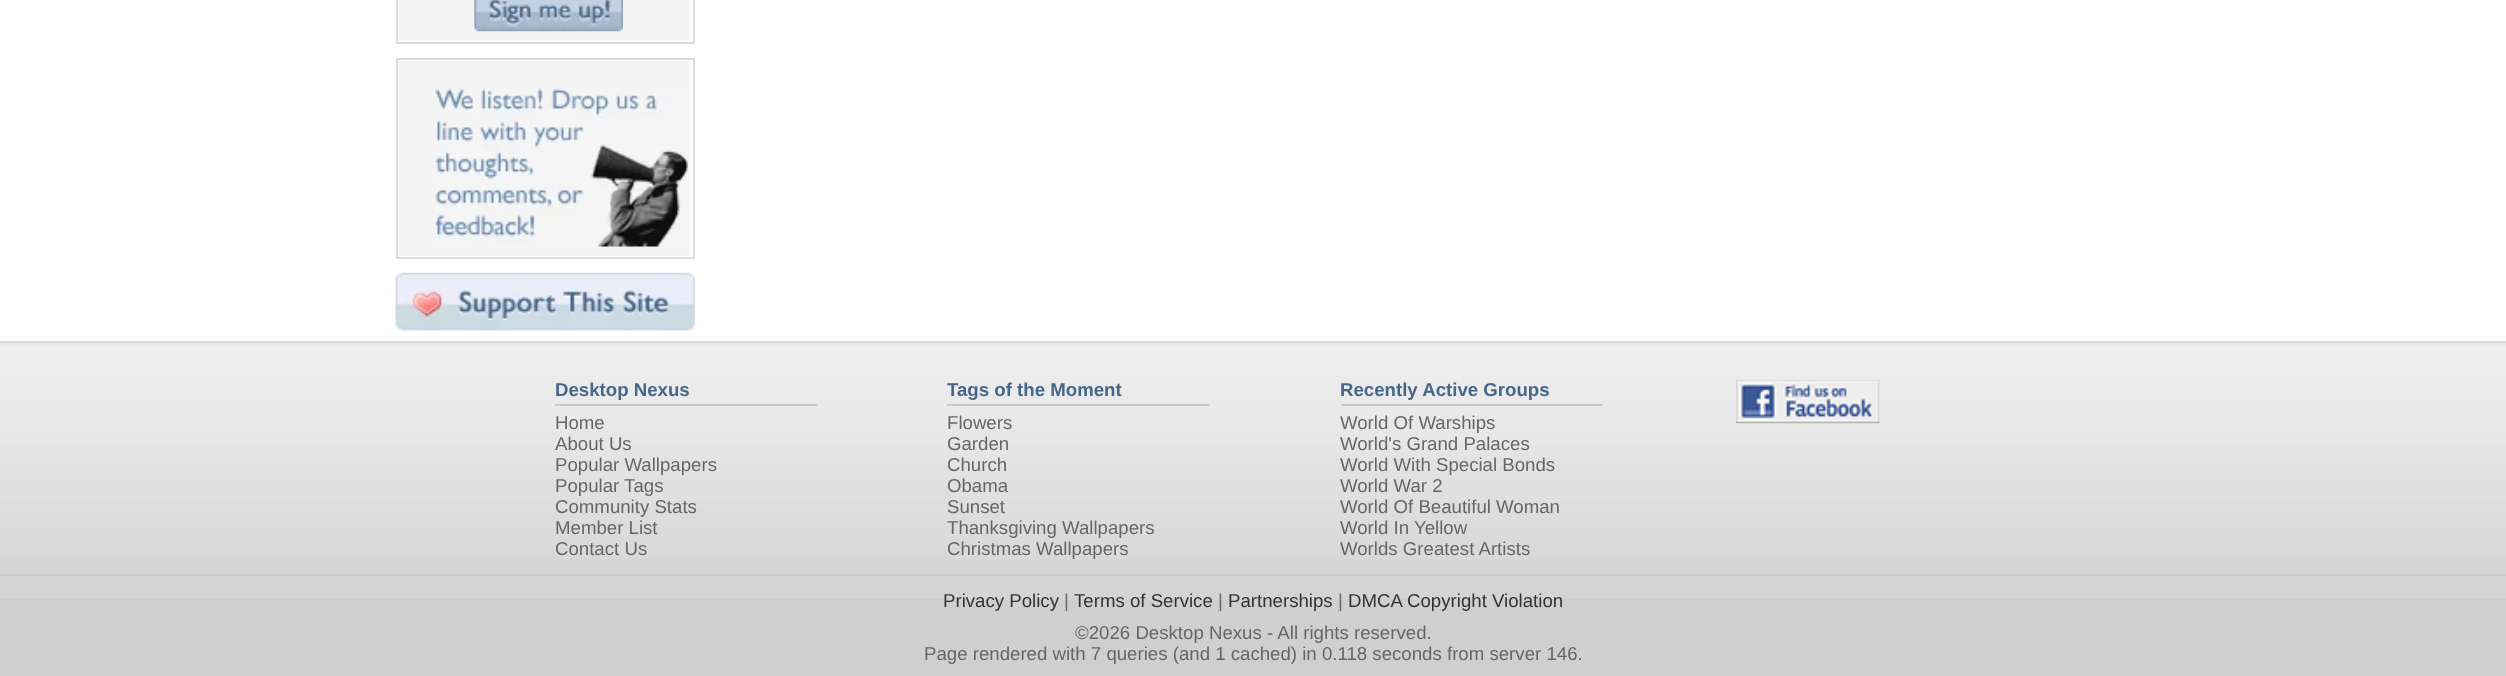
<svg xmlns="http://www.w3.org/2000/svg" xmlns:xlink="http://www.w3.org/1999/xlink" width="2506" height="676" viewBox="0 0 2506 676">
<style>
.cls-1{font:bold 18.65px Liberation Sans;fill:#46678a}
.cls-2{font:18.65px Liberation Sans;fill:#666666}
.cls-3{font:18.65px Liberation Sans;fill:#333333}
</style>
<rect width="100%" height="100%" fill="#ffffff"/>
<rect fill="none" stroke="#dcdcdc" stroke-width="2" x="397" y="-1" width="297" height="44"/>
<rect fill="#f4f4f4" x="399" y="0" width="292" height="40"/>
<image xlink:href="image0.png" x="474" y="0" width="149" height="32"/>
<rect fill="none" stroke="#dcdcdc" stroke-width="2" x="397" y="59" width="297" height="199"/>
<rect fill="#f4f4f4" x="399" y="61" width="292" height="195"/>
<image xlink:href="image1.png" x="435" y="88" width="253" height="159"/>
<image xlink:href="image2.png" x="395" y="272" width="300" height="59"/>
<rect fill="#cfcfcf" x="0" y="599" width="2506" height="77"/>
<image xlink:href="image3.png" x="0" y="341" width="2506" height="258"/>
<rect fill="#c9c9c9" x="555" y="404" width="262" height="2"/>
<rect fill="#c9c9c9" x="947" y="404" width="262" height="2"/>
<rect fill="#c9c9c9" x="1341" y="404" width="262" height="2"/>
<image xlink:href="image4.png" x="1736" y="379" width="144" height="45"/>
<rect fill="#c9c9c9" x="0" y="574" width="2506" height="2"/>
<text class="cls-1" x="555" y="396">Desktop Nexus</text>
<text class="cls-2"><tspan x="555" y="429">Home</tspan><tspan x="555" y="450">About Us</tspan><tspan x="555" y="471">Popular Wallpapers</tspan><tspan x="555" y="492">Popular Tags</tspan><tspan x="555" y="513">Community Stats</tspan><tspan x="555" y="534">Member List</tspan><tspan x="555" y="555">Contact Us</tspan></text>
<text class="cls-1" x="947" y="396">Tags of the Moment</text>
<text class="cls-2"><tspan x="947" y="429">Flowers</tspan><tspan x="947" y="450">Garden</tspan><tspan x="947" y="471">Church</tspan><tspan x="947" y="492">Obama</tspan><tspan x="947" y="513">Sunset</tspan><tspan x="947" y="534">Thanksgiving Wallpapers</tspan><tspan x="947" y="555">Christmas Wallpapers</tspan></text>
<text class="cls-1" x="1340" y="396">Recently Active Groups</text>
<text class="cls-2"><tspan x="1340" y="429">World Of Warships</tspan><tspan x="1340" y="450">World's Grand Palaces</tspan><tspan x="1340" y="471">World With Special Bonds</tspan><tspan x="1340" y="492">World War 2</tspan><tspan x="1340" y="513">World Of Beautiful Woman</tspan><tspan x="1340" y="534">World In Yellow</tspan><tspan x="1340" y="555">Worlds Greatest Artists</tspan></text>
<text class="cls-3" x="943" y="607">Privacy Policy</text>
<text class="cls-2" x="1064" y="607">|</text>
<text class="cls-3" x="1074" y="607">Terms of Service</text>
<text class="cls-2" x="1218" y="607">|</text>
<text class="cls-3" x="1228" y="607">Partnerships</text>
<text class="cls-2" x="1338" y="607">|</text>
<text class="cls-3" x="1348" y="607">DMCA Copyright Violation</text>
<text class="cls-2" x="1075" y="639">©2026 Desktop Nexus - All rights reserved.</text>
<text class="cls-2" x="924" y="660">Page rendered with 7 queries (and 1 cached) in 0.118 seconds from server 146.</text>
</svg>
